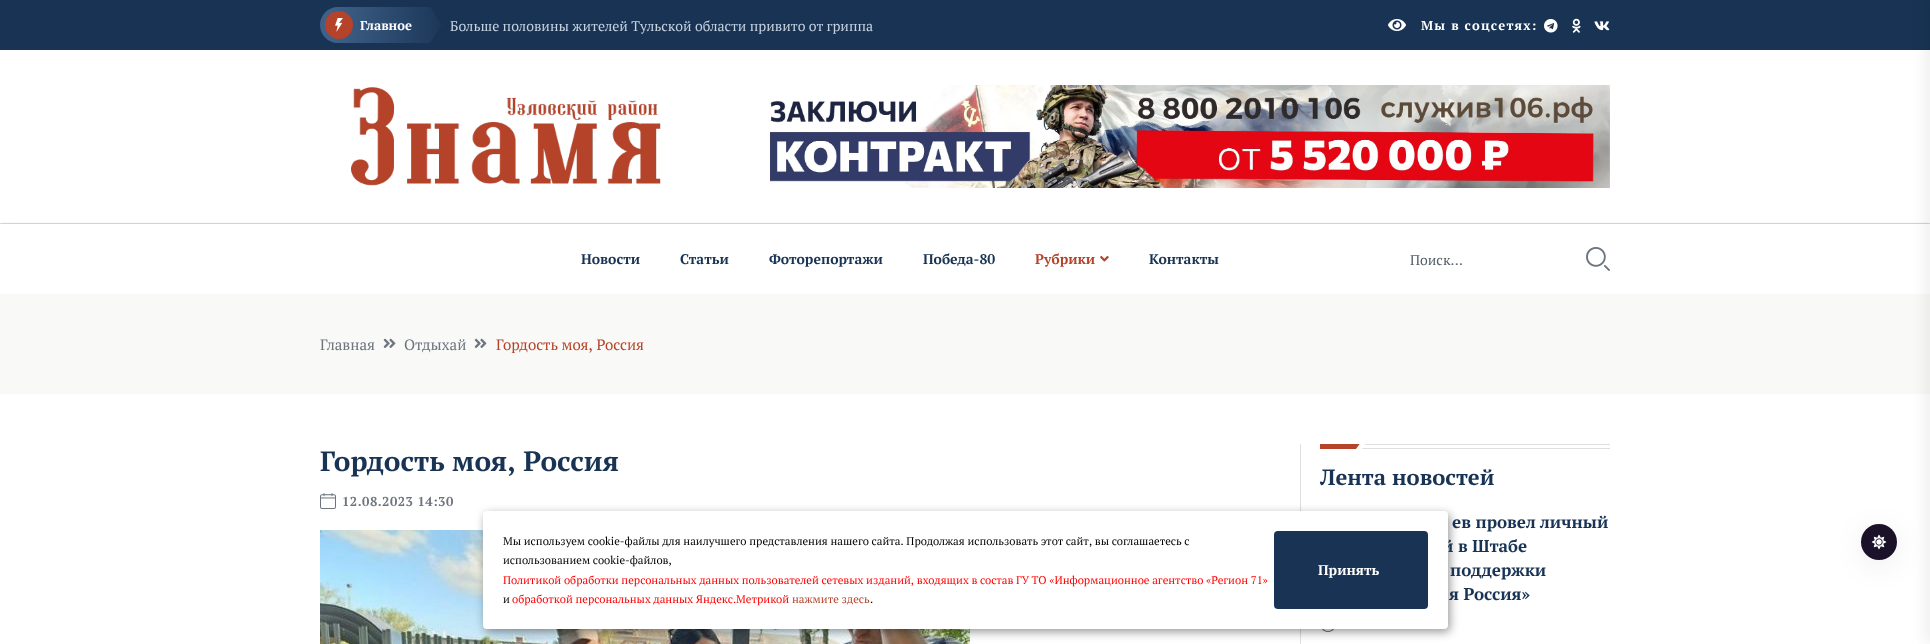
<svg xmlns="http://www.w3.org/2000/svg" xmlns:xlink="http://www.w3.org/1999/xlink" width="1930" height="644" viewBox="0 0 1930 644">
<style>
.cls-1{font:bold 13px PT Serif;fill:#ffffff}
.cls-2{font:14px PT Serif;fill:#c7d2e0}
.cls-3{font:bold 13px PT Serif;letter-spacing:1.25px;fill:#ffffff}
.cls-4{font:bold 14px PT Serif;fill:#183354}
.cls-5{font:bold 14px PT Serif;fill:#b54329}
.cls-6{font:14px PT Serif;fill:#545e69}
.cls-7{font:15px PT Serif;fill:#6d757f}
.cls-8{font:15px PT Serif;fill:#b54329}
.cls-9{font:bold 28px PT Serif;fill:#183354}
.cls-10{font:bold 13px PT Serif;letter-spacing:0.5px;fill:#6d757f}
.cls-11{font:bold 22px PT Serif;fill:#183354}
.cls-12{font:bold 17px PT Serif;fill:#183354}
.cls-13{font:11.2px PT Serif;fill:#000000}
.cls-14{font:11.2px PT Serif;fill:#ff0000}
.cls-15{font:11.2px PT Serif;fill:#b54329}
.cls-16{font:bold 14px PT Serif;fill:#ffffff}
</style>
<defs>
<linearGradient id="g1" gradientUnits="userSpaceOnUse" x1="332" y1="43" x2="452" y2="43"><stop offset="0" stop-color="#3f6088"/><stop offset="1" stop-color="#183354"/></linearGradient>
<clipPath id="clip1"><rect x="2" y="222" width="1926" height="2"/></clipPath>
</defs>
<rect width="100%" height="100%" fill="#ffffff"/>
<rect fill="#183354" x="0" y="0" width="1930" height="50"/>
<path fill="url(#g1)" d="M320 25C320 15 328 7 338 7H430L441 24C442 25 442 25 441 26L430 43H338C328 43 320 35 320 25Z"/>
<circle fill="#b54329" cx="339" cy="25" r="14"/>
<image xlink:href="image0.png" x="335" y="18" width="8" height="14"/>
<image xlink:href="image1.png" x="1388" y="19" width="18" height="12"/>
<image xlink:href="image2.png" x="1544" y="19" width="14" height="14"/>
<image xlink:href="image3.png" x="1572" y="18" width="9" height="15"/>
<image xlink:href="image4.png" x="1594" y="21" width="16" height="10"/>
<rect fill="#d9d9d9" x="0" y="223" width="1930" height="1"/>
<image xlink:href="image5.png" x="351" y="87" width="310" height="99"/>
<image xlink:href="image6.png" x="768" y="85" width="842" height="103"/>
<g clip-path="url(#clip1)">
<rect fill="#000000" fill-opacity="0.1" filter="blur(5px)" x="0" y="226" width="1930" height="70"/>
</g>
<image xlink:href="image7.png" x="1100" y="256" width="9" height="6"/>
<image xlink:href="image8.png" x="1586" y="247" width="24" height="24"/>
<rect fill="#f9f9f7" x="0" y="294" width="1930" height="100"/>
<rect fill="#000000" fill-opacity="0.06" filter="blur(7px)" x="1924" y="0" width="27" height="644"/>
<image xlink:href="image9.png" x="383" y="338" width="13" height="10"/>
<image xlink:href="image9.png" x="474" y="338" width="13" height="10"/>
<image xlink:href="image10.png" x="320" y="493" width="16" height="16"/>
<image xlink:href="image11.png" x="320" y="530" width="650" height="114"/>
<rect fill="#dfdfdf" x="1300" y="444" width="1" height="200"/>
<rect fill="#dfdfdf" x="1365" y="444" width="245" height="1"/>
<rect fill="#dfdfdf" x="1362" y="448" width="248" height="1"/>
<rect fill="#b54329" x="1320" y="444" width="40" height="5"/>
<path fill="#ffffff" d="M1360 443.5H1366L1362 449H1356Z"/>
<image xlink:href="image12.png" x="1321" y="629" width="14" height="3"/>
<rect fill="#000000" fill-opacity="0.08" filter="blur(14.5px)" x="1862" y="530" width="34" height="35" rx="17"/>
<circle fill="#1b1128" cx="1879" cy="542" r="18"/>
<image xlink:href="image13.png" x="1871" y="534" width="16" height="16"/>
<rect fill="#000000" fill-opacity="0.4" filter="blur(5px)" x="485" y="514" width="965" height="118" rx="4"/>
<text class="cls-1" x="360" y="30">Главное</text>
<text class="cls-2" x="450" y="31">Больше половины жителей Тульской области привито от гриппа</text>
<text class="cls-3" x="1421" y="30">Мы в соцсетях:</text>
<text class="cls-4" x="581" y="264">Новости</text>
<text class="cls-4" x="680" y="264">Статьи</text>
<text class="cls-4" x="769" y="264">Фоторепортажи</text>
<text class="cls-4" x="923" y="264">Победа-80</text>
<text class="cls-5" x="1035" y="264">Рубрики</text>
<text class="cls-4" x="1149" y="264">Контакты</text>
<text class="cls-6" x="1410" y="265">Поиск...</text>
<text class="cls-7" x="320" y="350">Главная</text>
<text class="cls-7" x="404" y="350">Отдыхай</text>
<text class="cls-8" x="496" y="350">Гордость моя, Россия</text>
<text class="cls-9" x="320" y="471">Гордость моя, Россия</text>
<text class="cls-10" x="342" y="506">12.08.2023 14:30</text>
<text class="cls-11" x="1320" y="485">Лента новостей</text>
<text class="cls-12" x="1452" y="528">ев провел личный</text>
<text class="cls-12" x="1442" y="552">й в Штабе</text>
<text class="cls-12" x="1450" y="576">поддержки</text>
<text class="cls-12" x="1449" y="600">я Россия»</text>
<rect fill="#ffffff" x="483" y="511" width="965" height="118" rx="4"/>
<text class="cls-13"><tspan x="503" y="545">Мы используем cookie-файлы для наилучшего представления нашего сайта. Продолжая использовать этот сайт, вы соглашаетесь с</tspan><tspan x="503" y="564">использованием cookie-файлов,</tspan></text>
<text class="cls-14" x="503" y="584">Политикой обработки персональных данных пользователей сетевых изданий, входящих в состав ГУ ТО «Информационное агентство «Регион 71»</text>
<text class="cls-13" x="503" y="603">и</text>
<text class="cls-14" x="512" y="603">обработкой персональных данных Яндекс.Метрикой</text>
<text class="cls-15" x="792" y="603">нажмите здесь</text>
<text class="cls-13" x="870" y="603">.</text>
<rect fill="#183354" x="1274" y="531" width="154" height="78" rx="4"/>
<text class="cls-16" x="1318" y="575">Принять</text>
</svg>
